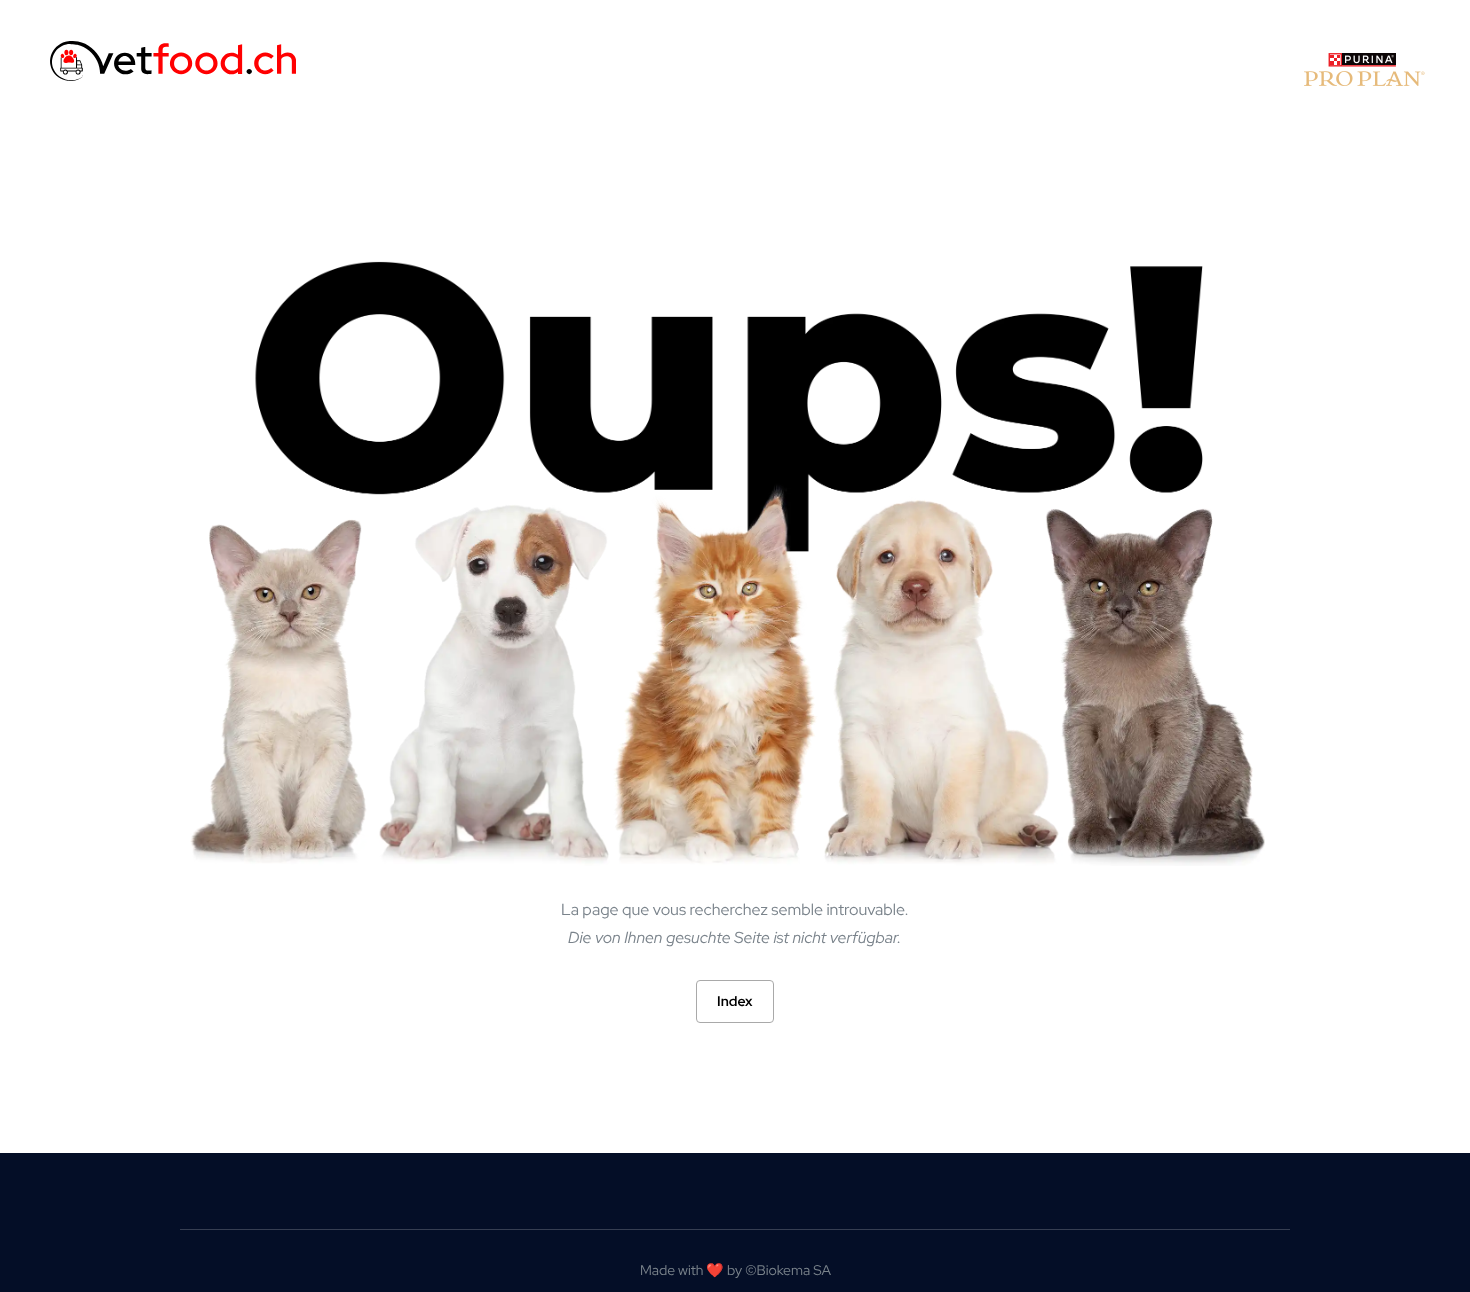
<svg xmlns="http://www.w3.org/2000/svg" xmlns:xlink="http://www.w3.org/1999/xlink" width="1470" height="1292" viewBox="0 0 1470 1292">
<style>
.cls-1{font:16px Red Hat Display;fill:#7a838b}
.cls-2{font:italic 16px Red Hat Display;fill:#7a838b}
.cls-3{font:bold 14px Red Hat Display;fill:#000000}
.cls-4{font:14px Red Hat Display;fill:#7a838b}
.cls-5{font:14px Noto Color Emoji;fill:#7a838b}
</style>
<rect width="100%" height="100%" fill="#ffffff"/>
<image xlink:href="image0.png" x="50" y="41" width="246" height="40"/>
<image xlink:href="image1.png" x="1304" y="53" width="121" height="33"/>
<image xlink:href="image2.png" x="190" y="261" width="1075" height="605"/>
<rect fill="none" stroke="#a9a9a9" x="696.5" y="980.5" width="77" height="42" rx="3.5"/>
<rect fill="#040e27" x="0" y="1153" width="1470" height="139"/>
<rect fill="#363e52" x="180" y="1229" width="1110" height="1"/>
<text class="cls-1" x="561" y="915">La page que vous recherchez semble introuvable.</text>
<text class="cls-2" x="568" y="943">Die von Ihnen gesuchte Seite ist nicht verfügbar.</text>
<text class="cls-3" x="717" y="1006">Index</text>
<text class="cls-4" x="640" y="1275">Made with</text>
<text class="cls-5" x="706" y="1275">❤️</text>
<text class="cls-4" x="727" y="1275">by ©Biokema SA</text>
</svg>
